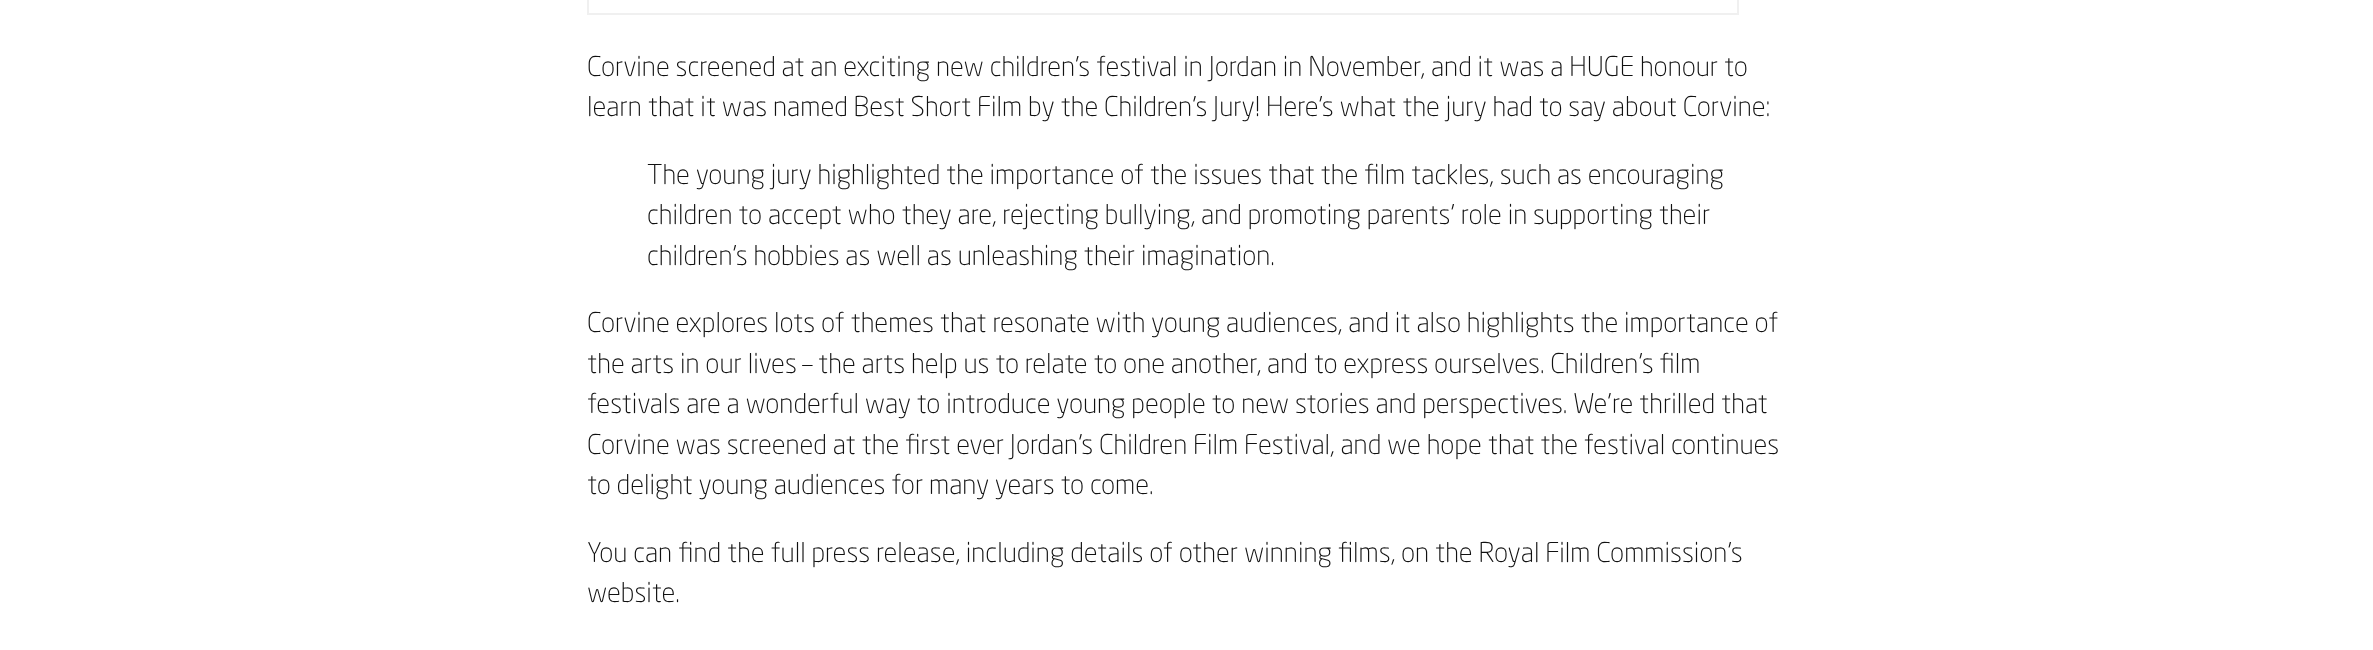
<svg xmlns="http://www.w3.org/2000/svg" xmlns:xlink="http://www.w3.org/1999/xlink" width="2373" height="650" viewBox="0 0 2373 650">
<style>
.cls-1{font:300 27px 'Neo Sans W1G';fill:#111111}
</style>
<rect width="100%" height="100%" fill="#ffffff"/>
<rect fill="none" stroke="#f0f0f0" stroke-width="2" x="588" y="-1" width="1150" height="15"/>
<text class="cls-1"><tspan x="587" y="76">Corvine screened at an exciting new children’s festival in Jordan in November, and it was a HUGE honour to</tspan><tspan x="587" y="116">learn that it was named Best Short Film by the Children’s Jury! Here’s what the jury had to say about Corvine:</tspan></text>
<text class="cls-1"><tspan x="647" y="184">The young jury highlighted the importance of the issues that the film tackles, such as encouraging</tspan><tspan x="647" y="224">children to accept who they are, rejecting bullying, and promoting parents’ role in supporting their</tspan><tspan x="647" y="265">children’s hobbies as well as unleashing their imagination.</tspan></text>
<text class="cls-1"><tspan x="587" y="332">Corvine explores lots of themes that resonate with young audiences, and it also highlights the importance of</tspan><tspan x="587" y="373">the arts in our lives – the arts help us to relate to one another, and to express ourselves. Children’s film</tspan><tspan x="587" y="413">festivals are a wonderful way to introduce young people to new stories and perspectives. We’re thrilled that</tspan><tspan x="587" y="454">Corvine was screened at the first ever Jordan’s Children Film Festival, and we hope that the festival continues</tspan><tspan x="587" y="494">to delight young audiences for many years to come.</tspan></text>
<text class="cls-1"><tspan x="587" y="562">You can find the full press release, including details of other winning films, on the Royal Film Commission’s</tspan><tspan x="587" y="602">website.</tspan></text>
</svg>
